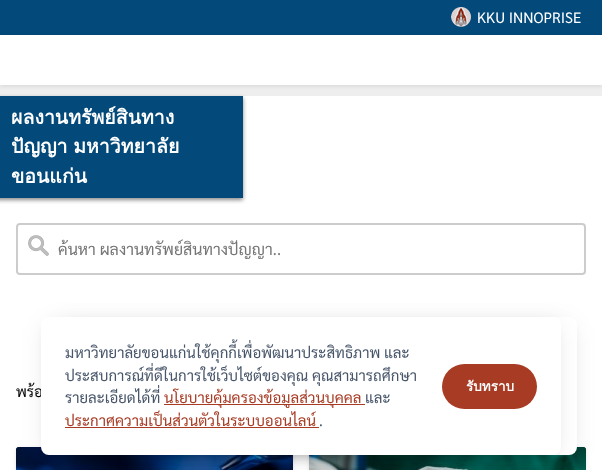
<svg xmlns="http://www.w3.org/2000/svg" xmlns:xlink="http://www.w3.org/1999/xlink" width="602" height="470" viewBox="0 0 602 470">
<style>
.cls-1{font:15px Sarabun;fill:#ffffff}
.cls-2{font:bold 19.5px Loma;fill:#ffffff}
.cls-3{font:16px Sarabun;fill:#757575}
.cls-4{font:15px Sarabun;fill:#000000}
.cls-5{font:15px Sarabun;fill:#475569}
.cls-6{font:15px Sarabun;fill:#a73b24}
.cls-7{font:bold 13.5px Loma;fill:#ffffff}
</style>
<defs>
<clipPath id="clip1"><rect x="58" y="238" width="506" height="21"/></clipPath>
</defs>
<rect width="100%" height="100%" fill="#eeeeee"/>
<rect fill="#03497a" x="0" y="0" width="602" height="35"/>
<image xlink:href="image0.png" x="451" y="7" width="20" height="20"/>
<rect fill="#000000" fill-opacity="0.1" filter="blur(2px)" x="0" y="36" width="602" height="50"/>
<rect fill="#ffffff" x="0" y="35" width="602" height="50"/>
<rect fill="#ffffff" x="0" y="96" width="602" height="374"/>
<rect fill="#000000" fill-opacity="0.1" filter="blur(2px)" x="16" y="448" width="277" height="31" rx="3"/>
<rect fill="#000000" x="16" y="447" width="277" height="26" rx="3"/>
<image xlink:href="image2.png" x="16" y="447" width="277" height="23"/>
<rect fill="#000000" fill-opacity="0.1" filter="blur(2px)" x="309" y="448" width="277" height="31" rx="3"/>
<rect fill="#000000" x="309" y="447" width="277" height="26" rx="3"/>
<image xlink:href="image3.png" x="309" y="447" width="277" height="23"/>
<rect fill="#000000" fill-opacity="0.1" filter="blur(5px)" x="63" y="331" width="508" height="126" rx="2"/>
<rect fill="#000000" fill-opacity="0.1" filter="blur(12.5px)" x="62" y="326" width="510" height="128" rx="3"/>
<rect fill="#ffffff" x="57" y="317" width="520" height="138" rx="8"/>
<rect fill="#888888" filter="blur(2px)" x="-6" y="98" width="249" height="102"/>
<rect fill="#03497a" x="0" y="96" width="243" height="102"/>
<image xlink:href="image1.png" x="28" y="235" width="21" height="21"/>
<rect fill="none" stroke="#cccccc" stroke-width="2" x="17" y="224" width="568" height="50" rx="3"/>
<rect fill="#000000" fill-opacity="0.1" filter="blur(5px)" x="47" y="331" width="508" height="126" rx="2"/>
<rect fill="#000000" fill-opacity="0.1" filter="blur(12.5px)" x="46" y="326" width="510" height="128" rx="3"/>
<text class="cls-1" x="477" y="23">KKU INNOPRISE</text>
<text class="cls-2"><tspan x="11" y="124">ผลงานทรัพย์สินทาง</tspan><tspan x="11" y="153" word-spacing="-1">ปัญญา มหาวิทยาลัย</tspan><tspan x="11" y="183">ขอนแก่น</tspan></text>
<g clip-path="url(#clip1)">
<text class="cls-3" x="58" y="255">ค้นหา ผลงานทรัพย์สินทางปัญญา..</text>
</g>
<text class="cls-4" x="16" y="397">พร้อ</text>
<rect fill="#ffffff" x="41" y="317" width="520" height="138" rx="8"/>
<text class="cls-5"><tspan x="65" y="358">มหาวิทยาลัยขอนแก่นใช้คุกกี้เพื่อพัฒนาประสิทธิภาพ และ</tspan><tspan x="65" y="381">ประสบการณ์ที่ดีในการใช้เว็บไซต์ของคุณ คุณสามารถศึกษา</tspan><tspan x="65" y="403">รายละเอียดได้ที่</tspan></text>
<rect fill="#a73b24" x="164" y="404" width="201" height="1"/>
<text class="cls-6" x="164" y="403">นโยบายคุ้มครองข้อมูลส่วนบุคคล</text>
<text class="cls-5" x="365" y="403">และ</text>
<text class="cls-6" x="65" y="426">ประกาศความเป็นส่วนตัวในระบบออนไลน์</text>
<rect fill="#a73b24" x="65" y="427" width="254" height="1"/>
<text class="cls-5" x="319" y="426">.</text>
<rect fill="#a73b24" x="442" y="364" width="95" height="45" rx="22.5"/>
<text class="cls-7" x="466" y="391">รับทราบ</text>
</svg>
